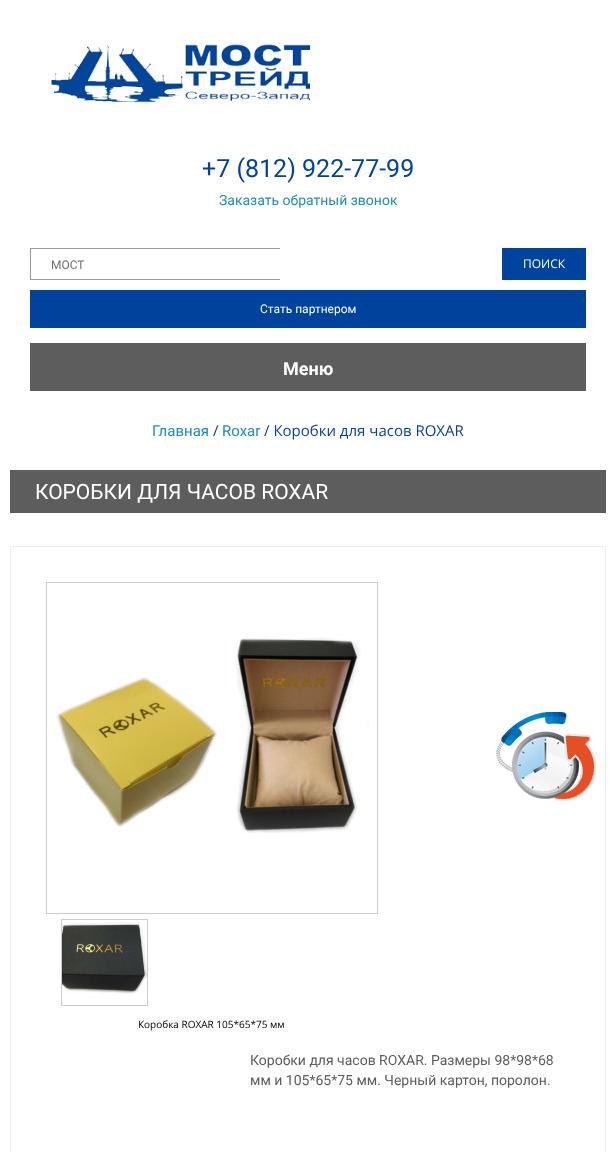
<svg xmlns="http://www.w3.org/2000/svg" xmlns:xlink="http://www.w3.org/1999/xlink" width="616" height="1152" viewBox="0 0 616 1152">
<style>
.cls-1{font:25px Roboto;fill:#00439d}
.cls-2{font:14px Roboto;fill:#1e8cbe}
.cls-3{font:12px 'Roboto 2';fill:#6e6e6e}
.cls-4{font:12px Open Sans;fill:#ffffff}
.cls-5{font:12px 'Roboto 2';fill:#ffffff}
.cls-6{font:bold 18px Roboto;fill:#ffffff}
.cls-7{font:15px Roboto;fill:#1e8cbe}
.cls-8{font:15px Open Sans;fill:#00439d}
.cls-9{font:21px Roboto;fill:#ffffff}
.cls-10{font:10px Open Sans;fill:#000000}
.cls-11{font:14px Roboto;fill:#5c5c5c}
</style>
<rect width="100%" height="100%" fill="#ffffff"/>
<image xlink:href="image0.png" x="51" y="44" width="260" height="59"/>
<rect fill="#999999" x="30" y="248" width="250" height="1"/>
<rect fill="#999999" x="30" y="279" width="250" height="1"/>
<rect fill="#999999" x="30" y="248" width="1" height="32"/>
<rect fill="#00439d" x="502" y="248" width="84" height="32"/>
<rect fill="#00439d" x="30" y="290" width="556" height="38"/>
<rect fill="#5d5d5d" x="30" y="343" width="556" height="48"/>
<rect fill="#5d5d5d" x="10" y="470" width="596" height="43"/>
<rect fill="none" stroke="#f1edea" x="10.5" y="546.5" width="595" height="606"/>
<rect fill="none" stroke="#cccccc" x="46.5" y="582.5" width="331" height="331"/>
<image xlink:href="image1.png" x="56" y="637" width="314" height="196"/>
<rect fill="none" stroke="#cccccc" x="61.5" y="919.5" width="86" height="86"/>
<image xlink:href="image2.png" x="62" y="922" width="85" height="72"/>
<image xlink:href="image3.png" x="496" y="712" width="100" height="89"/>
<text class="cls-1" x="202" y="177">+7 (812) 922-77-99</text>
<text class="cls-2" x="219" y="205">Заказать обратный звонок</text>
<text class="cls-3" x="51" y="269">МОСТ</text>
<text class="cls-4" x="523" y="268">ПОИСК</text>
<text class="cls-5" x="260" y="313">Cтать партнером</text>
<text class="cls-6" x="283" y="375">Меню</text>
<text class="cls-7" x="152" y="436">Главная</text>
<text class="cls-8" x="213" y="436">/</text>
<text class="cls-7" x="222" y="436">Roxar</text>
<text class="cls-8" x="264" y="436">/ Коробки для часов ROXAR</text>
<text class="cls-9" x="35" y="499">КОРОБКИ ДЛЯ ЧАСОВ ROXAR</text>
<text class="cls-10" x="138" y="1028">Коробка ROXAR 105*65*75 мм</text>
<text class="cls-11"><tspan x="250" y="1065">Коробки для часов ROXAR. Размеры 98*98*68</tspan><tspan x="250" y="1085">мм и 105*65*75 мм. Черный картон, поролон.</tspan></text>
</svg>
